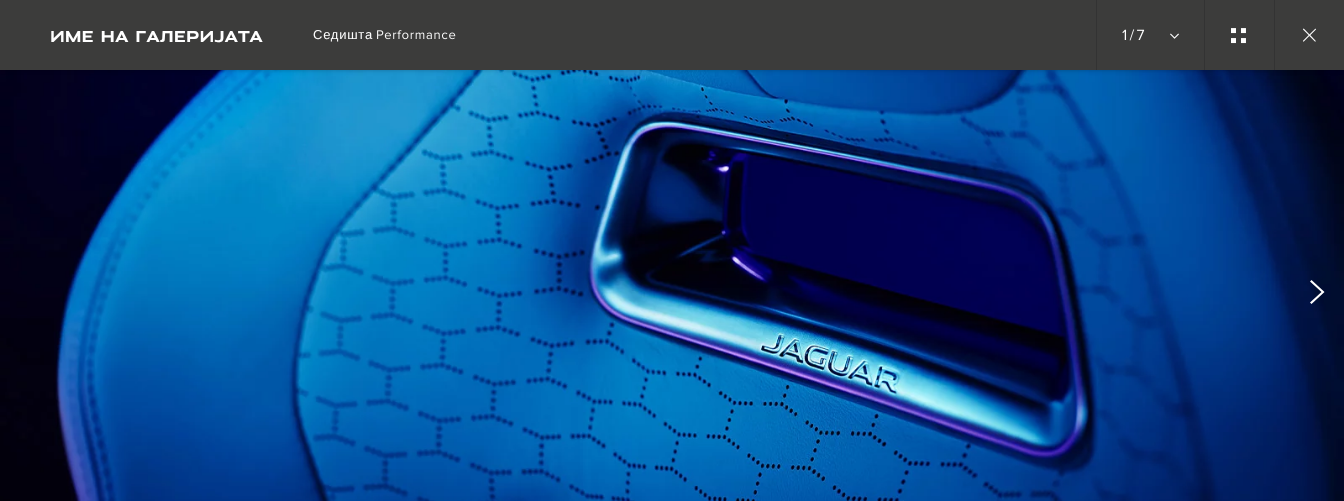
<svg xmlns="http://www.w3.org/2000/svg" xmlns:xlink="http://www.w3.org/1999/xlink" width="1344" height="501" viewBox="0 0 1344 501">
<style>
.cls-1{font:bold 15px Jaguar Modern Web;fill:#ffffff}
.cls-2{font:13px Liberation Sans;letter-spacing:0.75px;fill:#ffffff}
</style>
<rect width="100%" height="100%" fill="#ffffff"/>
<image xlink:href="image5.png" x="0" y="70" width="1344" height="431"/>
<rect fill="#000000" fill-opacity="0.25" filter="blur(2px)" x="0" y="0" width="1344" height="70"/>
<rect fill="#3c3c3b" x="0" y="0" width="1344" height="70"/>
<image xlink:href="image0.png" x="377" y="30" width="79" height="10"/>
<rect fill="#333333" x="1096" y="0" width="1" height="70"/>
<image xlink:href="image1.png" x="1122" y="29" width="23" height="12"/>
<image xlink:href="image2.png" x="1170" y="33" width="9" height="6"/>
<rect fill="#333333" x="1204" y="0" width="1" height="70"/>
<image xlink:href="image3.png" x="1231" y="28" width="15" height="16"/>
<rect fill="#333333" x="1274" y="0" width="1" height="70"/>
<image xlink:href="image4.png" x="1303" y="28" width="13" height="14"/>
<path fill="#ffffff" d="M1311.5 304L1310 302.5L1321.5 292L1310 281.5L1311.5 280L1324.5 292Z"/>
<text class="cls-1" x="50" y="42">ИМЕ НА ГАЛЕРИЈАТА</text>
<text class="cls-2" x="313" y="39">Седишта</text>
</svg>
